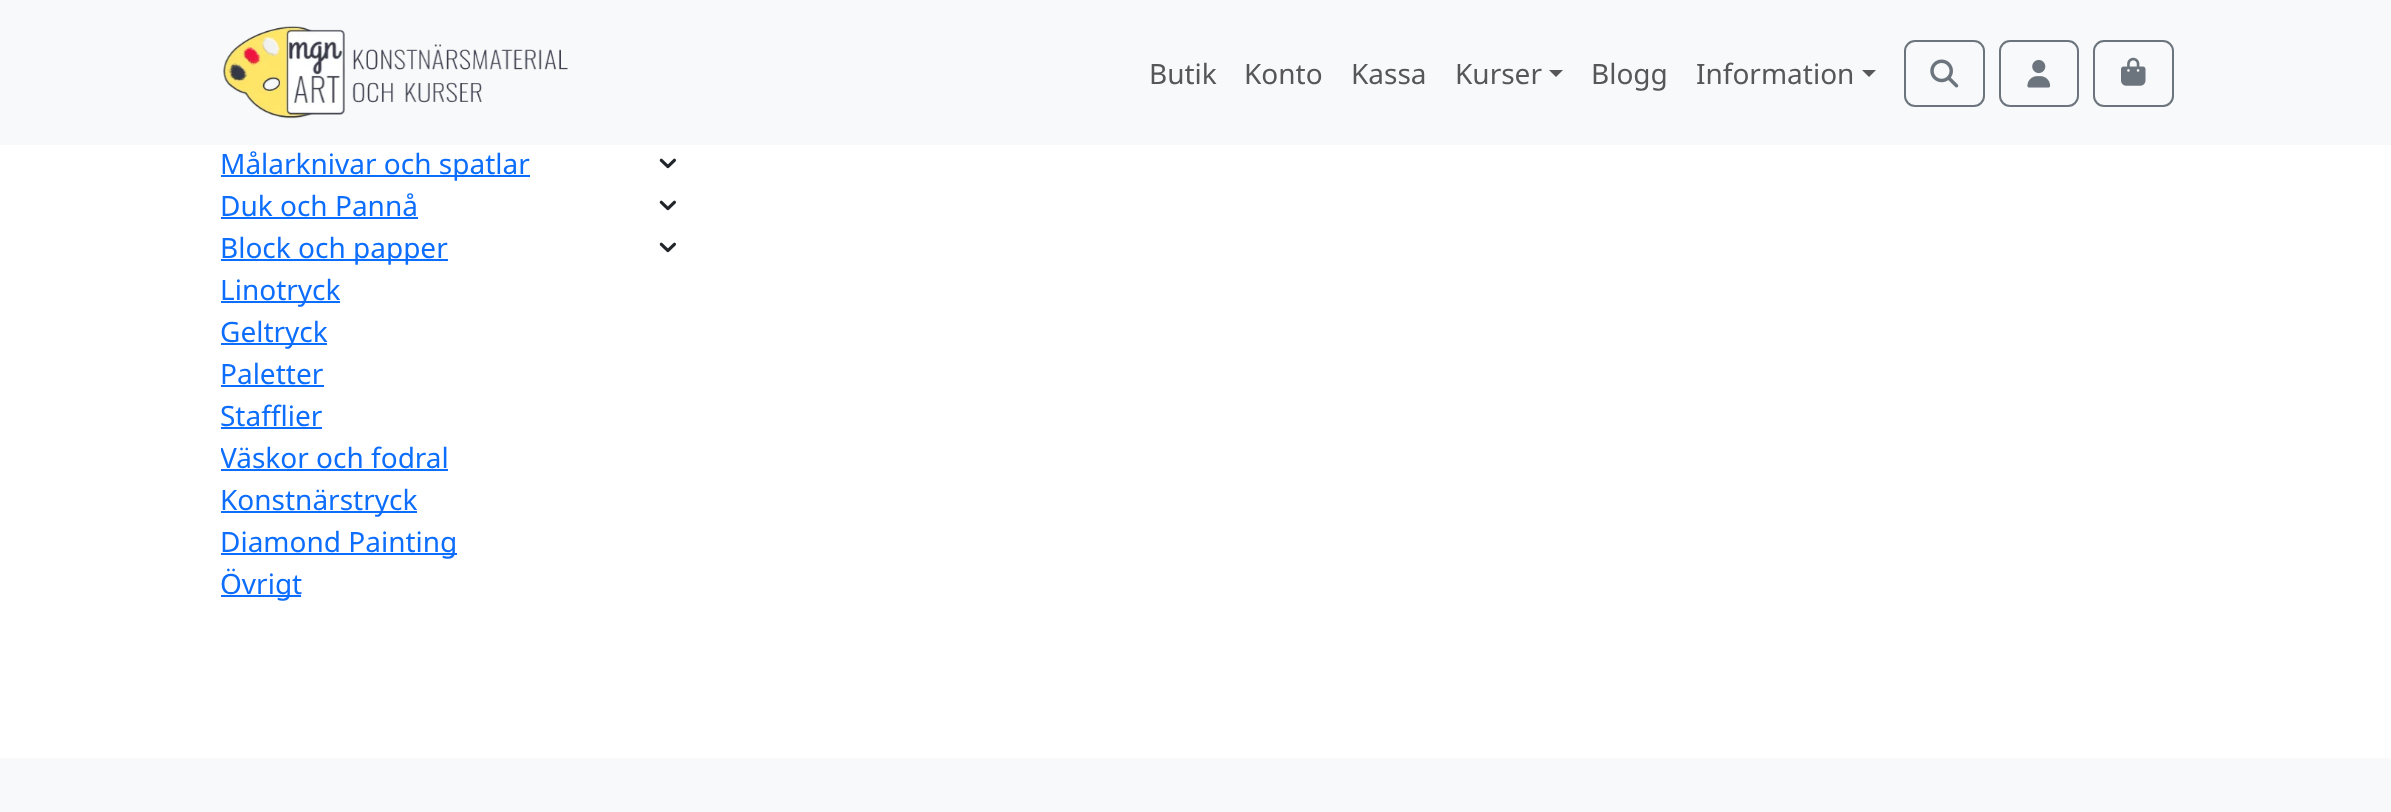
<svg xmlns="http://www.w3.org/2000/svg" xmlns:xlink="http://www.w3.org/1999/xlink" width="2391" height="812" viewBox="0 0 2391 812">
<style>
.cls-1{font:28px Noto Sans;fill:#575758}
.cls-2{font:28px Noto Sans;fill:#0d6efd}
</style>
<defs>
<clipPath id="clip1"><rect x="221" y="436" width="456" height="42"/></clipPath>
</defs>
<rect width="100%" height="100%" fill="#ffffff"/>
<rect fill="#f8f9fa" x="0" y="0" width="2391" height="145"/>
<image xlink:href="image0.png" x="223" y="26" width="345" height="93"/>
<path fill="#575758" d="M1549 70H1563L1556 77Z"/>
<path fill="#575758" d="M1862 70H1876L1869 77Z"/>
<rect fill="none" stroke="#6c757d" stroke-width="2" x="1905" y="41" width="79" height="65" rx="10"/>
<image xlink:href="image1.png" x="1930" y="59" width="29" height="29"/>
<rect fill="none" stroke="#6c757d" stroke-width="2" x="2000" y="41" width="78" height="65" rx="10"/>
<image xlink:href="image2.png" x="2027" y="59" width="24" height="29"/>
<rect fill="none" stroke="#6c757d" stroke-width="2" x="2094" y="41" width="79" height="65" rx="10"/>
<image xlink:href="image3.png" x="2121" y="57" width="25" height="29"/>
<rect fill="#0d6efd" x="221" y="175" width="309" height="2"/>
<image xlink:href="image4.png" x="659" y="158" width="17" height="11"/>
<rect fill="#0d6efd" x="221" y="217" width="197" height="2"/>
<image xlink:href="image4.png" x="659" y="200" width="17" height="11"/>
<rect fill="#0d6efd" x="221" y="259" width="227" height="2"/>
<image xlink:href="image4.png" x="659" y="242" width="17" height="11"/>
<rect fill="#0d6efd" x="221" y="301" width="119" height="2"/>
<rect fill="#0d6efd" x="221" y="343" width="106" height="2"/>
<rect fill="#0d6efd" x="221" y="385" width="103" height="2"/>
<rect fill="#0d6efd" x="221" y="427" width="101" height="2"/>
<rect fill="#0d6efd" x="221" y="469" width="227" height="2"/>
<rect fill="#0d6efd" x="221" y="511" width="196" height="2"/>
<rect fill="#0d6efd" x="221" y="553" width="236" height="2"/>
<rect fill="#0d6efd" x="221" y="595" width="80" height="2"/>
<rect fill="#f8f9fa" x="0" y="758" width="2391" height="54"/>
<text class="cls-1" x="1149" y="84">Butik</text>
<text class="cls-1" x="1244" y="84">Konto</text>
<text class="cls-1" x="1351" y="84">Kassa</text>
<text class="cls-1" x="1455" y="84">Kurser</text>
<text class="cls-1" x="1591" y="84">Blogg</text>
<text class="cls-1" x="1696" y="84">Information</text>
<text class="cls-2"><tspan x="220" y="174">Målarknivar och spatlar</tspan><tspan x="220" y="216">Duk och Pannå</tspan><tspan x="220" y="258">Block och papper</tspan><tspan x="220" y="300">Linotryck</tspan><tspan x="220" y="342">Geltryck</tspan><tspan x="220" y="384">Paletter</tspan><tspan x="220" y="426">Stafflier</tspan></text>
<g clip-path="url(#clip1)">
<text class="cls-2" x="220" y="468">Väskor och fodral</text>
</g>
<text class="cls-2"><tspan x="220" y="510">Konstnärstryck</tspan><tspan x="220" y="552">Diamond Painting</tspan><tspan x="220" y="594">Övrigt</tspan></text>
</svg>
